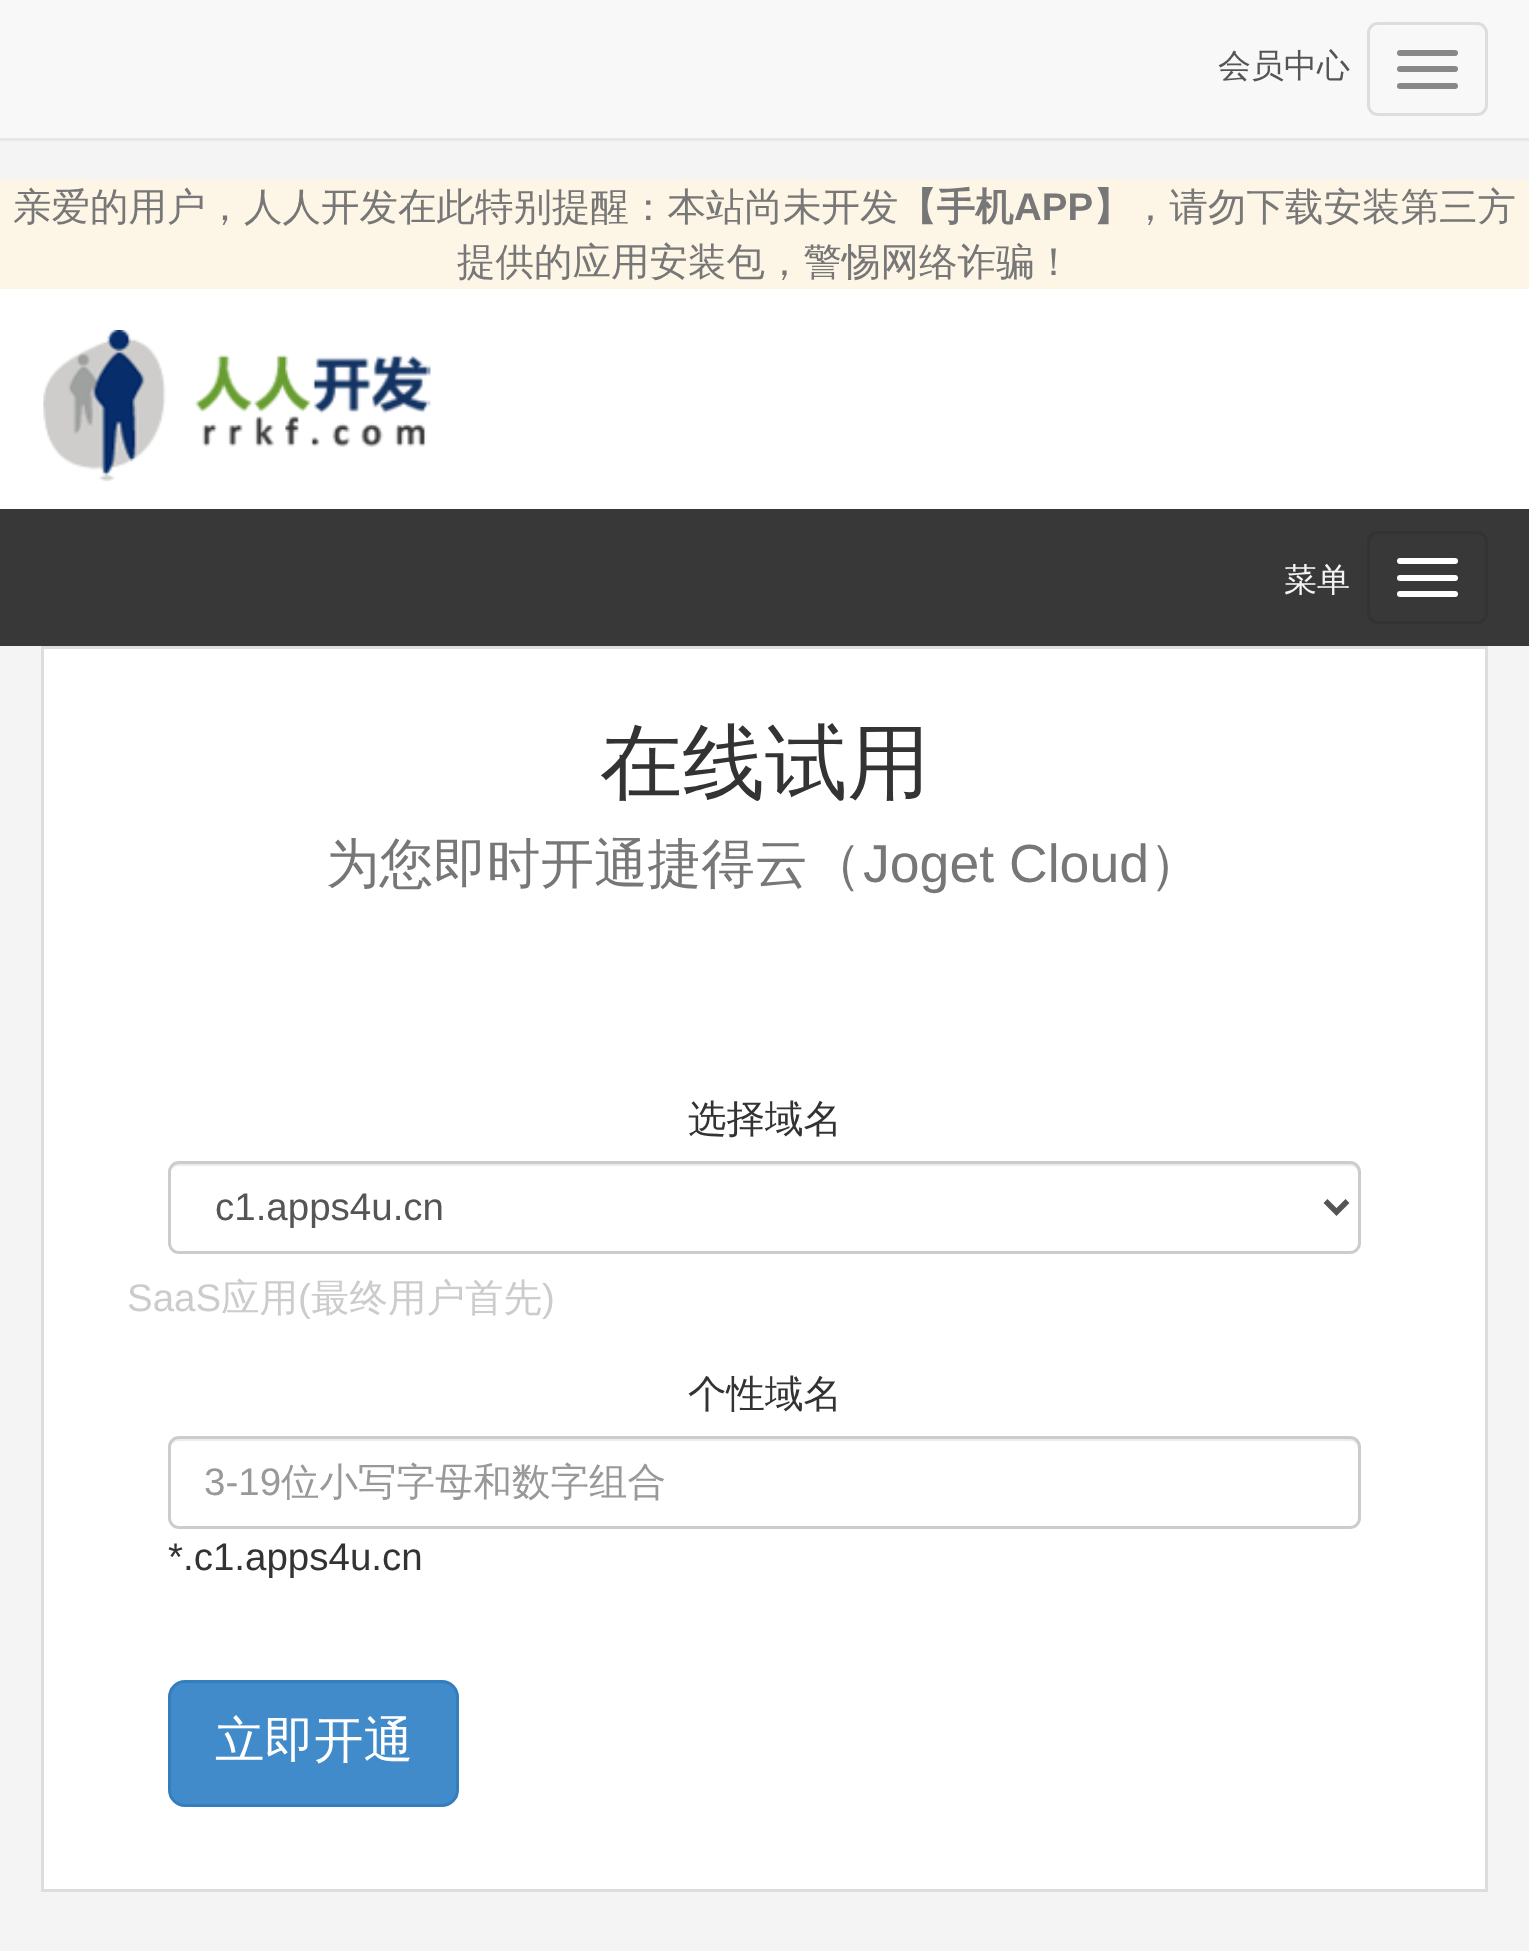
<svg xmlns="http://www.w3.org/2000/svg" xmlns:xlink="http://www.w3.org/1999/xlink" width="1529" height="1951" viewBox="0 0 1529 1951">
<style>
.cls-1{font:500 33px WenQuanYi Zen Hei;fill:#555555}
.cls-2{font:500 38.5px WenQuanYi Zen Hei;fill:#777777}
.cls-3{font:bold 38.5px WenQuanYi Zen Hei;fill:#777777}
.cls-4{font:bold 38.5px Liberation Sans;fill:#777777}
.cls-5{font:500 33px WenQuanYi Zen Hei;fill:#f4f4f4}
.cls-6{font:500 82.5px WenQuanYi Zen Hei;fill:#333333}
.cls-7{font:500 53.6px WenQuanYi Zen Hei;fill:#777777}
.cls-8{font:53.6px Liberation Sans;fill:#777777}
.cls-9{font:500 38.5px WenQuanYi Zen Hei;fill:#333333}
.cls-10{font:38.5px Liberation Sans;fill:#555555}
.cls-11{font:38.5px Liberation Sans;fill:#cccccc}
.cls-12{font:500 38.5px WenQuanYi Zen Hei;fill:#cccccc}
.cls-13{font:38.5px Liberation Sans;fill:#999999}
.cls-14{font:500 38.5px WenQuanYi Zen Hei;fill:#999999}
.cls-15{font:38.5px Liberation Sans;fill:#333333}
.cls-16{font:500 49.5px WenQuanYi Zen Hei;fill:#ffffff}
</style>
<rect width="100%" height="100%" fill="#f4f4f4"/>
<rect fill="#f8f8f8" x="0" y="0" width="1529" height="138"/>
<rect fill="#e7e7e7" x="0" y="138" width="1529" height="3"/>
<rect fill="none" stroke="#dddddd" stroke-width="3" x="1368.5" y="23.5" width="118" height="91" rx="9.5"/>
<rect fill="#888888" x="1397" y="50" width="61" height="6" rx="3"/>
<rect fill="#888888" x="1397" y="66" width="61" height="6" rx="3"/>
<rect fill="#888888" x="1397" y="83" width="61" height="6" rx="3"/>
<rect fill="#fdf5e6" x="0" y="179" width="1529" height="110"/>
<rect fill="#ffffff" x="0" y="289" width="1529" height="220"/>
<image xlink:href="image0.png" x="43" y="330" width="388" height="152"/>
<rect fill="#383838" x="0" y="509" width="1529" height="137"/>
<rect fill="none" stroke="#333333" stroke-width="3" x="1368.5" y="532.5" width="118" height="90" rx="9.5"/>
<rect fill="#ffffff" x="1397" y="558" width="61" height="6" rx="3"/>
<rect fill="#ffffff" x="1397" y="575" width="61" height="6" rx="3"/>
<rect fill="#ffffff" x="1397" y="591" width="61" height="6" rx="3"/>
<rect fill="#ffffff" stroke="#dddddd" stroke-width="3" x="42.5" y="647.5" width="1444" height="1243"/>
<path fill="#ececec" d="M179 1166H1350C1355 1166 1358 1170 1358 1174V1247C1359 1246 1359 1244 1359 1243V1171C1359 1167 1355 1163 1351 1163H179C175 1163 171 1166 171 1170C173 1168 176 1166 179 1166Z"/>
<rect fill="none" stroke="#cccccc" stroke-width="3" x="169.5" y="1162.5" width="1190" height="90" rx="9.5"/>
<path fill="none" stroke="#555555" stroke-width="5.5" d="M1325.5 1201L1336.5 1212L1347.5 1201"/>
<path fill="#ececec" d="M179 1441H1350C1355 1441 1358 1445 1358 1449V1522C1359 1521 1359 1519 1359 1518V1446C1359 1442 1355 1438 1351 1438H179C175 1438 171 1441 171 1445C173 1443 176 1441 179 1441Z"/>
<rect fill="none" stroke="#cccccc" stroke-width="3" x="169.5" y="1437.5" width="1190" height="90" rx="9.5"/>
<rect fill="#428bca" stroke="#357ebd" stroke-width="3" x="169.5" y="1681.5" width="288" height="124" rx="15.5"/>
<text class="cls-1" x="1218" y="77">会员中心</text>
<text class="cls-2" x="13" y="220">亲爱的用户，人人开发在此特别提醒：本站尚未开发</text>
<text class="cls-3" x="898" y="220">【手机</text>
<text class="cls-4" x="1014" y="220">APP</text>
<text class="cls-3" x="1093" y="220">】</text>
<text class="cls-2" x="1131" y="220">，请勿下载安装第三方</text>
<text class="cls-2" x="457" y="275">提供的应用安装包，警惕网络诈骗！</text>
<text class="cls-5" x="1284" y="591">菜单</text>
<text class="cls-6" x="600" y="791">在线试用</text>
<text class="cls-7" x="326" y="882">为您即时开通捷得云（</text>
<text class="cls-8" x="863" y="882">Joget Cloud</text>
<text class="cls-7" x="1149" y="882">）</text>
<text class="cls-9" x="688" y="1132">选择域名</text>
<text class="cls-10" x="215" y="1220">c1.apps4u.cn</text>
<text class="cls-11" x="127" y="1311">SaaS</text>
<text class="cls-12" x="221" y="1311">应用</text>
<text class="cls-11" x="298" y="1311">(</text>
<text class="cls-12" x="311" y="1311">最终用户首先</text>
<text class="cls-11" x="542" y="1311">)</text>
<text class="cls-9" x="688" y="1407">个性域名</text>
<text class="cls-13" x="204" y="1495">3-19</text>
<text class="cls-14" x="281" y="1495">位小写字母和数字组合</text>
<text class="cls-15" x="168" y="1570">*.c1.apps4u.cn</text>
<text class="cls-16" x="215" y="1757">立即开通</text>
</svg>
